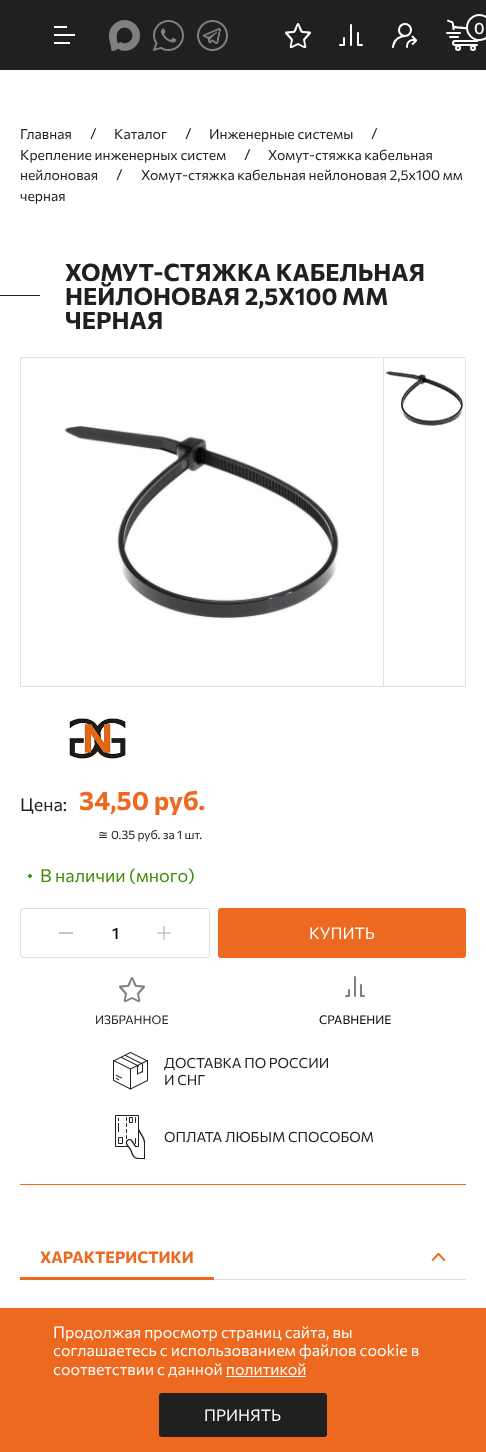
<svg xmlns="http://www.w3.org/2000/svg" xmlns:xlink="http://www.w3.org/1999/xlink" width="486" height="1452" viewBox="0 0 486 1452">
<style>
.cls-1{font:500 16px Commissioner;fill:#ffffff}
.cls-2{font:14px Commissioner;fill:#202020}
.cls-3{font:15px Commissioner;fill:#202020}
.cls-4{font:bold 24px Commissioner;fill:#202020}
.cls-5{font:18px Commissioner;fill:#202020}
.cls-6{font:bold 26px Commissioner;fill:#ec691f}
.cls-7{font:12px DejaVu Sans;fill:#202020}
.cls-8{font:12px Commissioner;fill:#202020}
.cls-9{font:18px Commissioner;fill:#408c09}
.cls-10{font:500 16px Commissioner;fill:#000000}
.cls-11{font:16px Commissioner;fill:#ffffff}
.cls-12{font:12px Commissioner;fill:#000000}
.cls-13{font:bold 16px Commissioner;fill:#ec691f}
</style>
<rect width="100%" height="100%" fill="#ffffff"/>
<rect fill="#202020" x="0" y="0" width="486" height="70"/>
<rect fill="#ffffff" x="54" y="34" width="21" height="2"/>
<rect fill="#ffffff" x="54" y="26" width="13" height="2"/>
<rect fill="#ffffff" x="54" y="42" width="16" height="2"/>
<image xlink:href="image0.png" x="109" y="20" width="31" height="31"/>
<image xlink:href="image1.png" x="153" y="20" width="31" height="31"/>
<image xlink:href="image2.png" x="197" y="20" width="31" height="31"/>
<image xlink:href="image3.png" x="285" y="23" width="26" height="26"/>
<image xlink:href="image4.png" x="339" y="24" width="24" height="22"/>
<image xlink:href="image5.png" x="392" y="23" width="26" height="25"/>
<image xlink:href="image6.png" x="446" y="19" width="33" height="32"/>
<circle fill="#202020" stroke="#ffffff" stroke-width="2" cx="479.5" cy="27.5" r="12.5"/>
<rect fill="#202020" x="0" y="295" width="40" height="1"/>
<rect fill="none" stroke="#e2e2e2" x="20.5" y="357.5" width="363" height="329"/>
<image xlink:href="image7.png" x="64" y="425" width="275" height="195"/>
<rect fill="#e2e2e2" x="384" y="357" width="82" height="1"/>
<rect fill="#e2e2e2" x="465" y="357" width="1" height="330"/>
<rect fill="#e2e2e2" x="384" y="686" width="82" height="1"/>
<image xlink:href="image8.png" x="386" y="371" width="78" height="55"/>
<image xlink:href="image9.png" x="68" y="717" width="58" height="42"/>
<circle fill="#408c09" stroke="#408c09" cx="30" cy="876" r="1.5"/>
<rect fill="none" stroke="#dfdfdf" x="20.5" y="908.5" width="189" height="49" rx="2.5"/>
<rect fill="#c4c4c4" x="59" y="932" width="14" height="2"/>
<image xlink:href="image10.png" x="157" y="926" width="14" height="14"/>
<rect fill="#ec691f" x="218" y="908" width="248" height="50" rx="3"/>
<image xlink:href="image11.png" x="119" y="977" width="26" height="26"/>
<image xlink:href="image12.png" x="345" y="976" width="20" height="21"/>
<rect fill="#ec691f" x="20" y="1184" width="446" height="1"/>
<image xlink:href="image13.png" x="113" y="1052" width="35" height="38"/>
<image xlink:href="image14.png" x="115" y="1115" width="30" height="44"/>
<rect fill="#dfdfdf" x="214" y="1279" width="252" height="1"/>
<rect fill="#ec691f" x="20" y="1277" width="194" height="3"/>
<image xlink:href="image15.png" x="431" y="1252" width="15" height="10"/>
<rect fill="#ec691f" x="0" y="1308" width="486" height="144"/>
<rect fill="#ffffff" x="226" y="1376" width="80" height="1"/>
<rect fill="#202020" x="159" y="1393" width="168" height="44" rx="3"/>
<text class="cls-1" x="474" y="34">0</text>
<text class="cls-2" x="20" y="139">Главная</text>
<text class="cls-3" x="90" y="139">/</text>
<text class="cls-2" x="114" y="139">Каталог</text>
<text class="cls-3" x="185" y="139">/</text>
<text class="cls-2" x="209" y="139">Инженерные системы</text>
<text class="cls-3" x="371" y="139">/</text>
<text class="cls-2" x="20" y="160">Крепление инженерных систем</text>
<text class="cls-3" x="244" y="160">/</text>
<text class="cls-2" x="268" y="160">Хомут-стяжка кабельная</text>
<text class="cls-2" x="20" y="180">нейлоновая</text>
<text class="cls-3" x="116" y="180">/</text>
<text class="cls-2" x="141" y="180">Хомут-стяжка кабельная нейлоновая 2,5х100 мм</text>
<text class="cls-2" x="20" y="201">черная</text>
<text class="cls-4"><tspan x="65" y="281">ХОМУТ-СТЯЖКА КАБЕЛЬНАЯ</tspan><tspan x="65" y="305">НЕЙЛОНОВАЯ 2,5Х100 ММ</tspan><tspan x="65" y="329">ЧЕРНАЯ</tspan></text>
<text class="cls-5" x="20" y="811">Цена:</text>
<text class="cls-6" x="79" y="810">34,50 руб.</text>
<text class="cls-7" x="98" y="839">≅</text>
<text class="cls-8" x="111" y="839">0.35 руб. за 1 шт.</text>
<text class="cls-9" x="40" y="882">В наличии (много)</text>
<text class="cls-10" x="112" y="939">1</text>
<text class="cls-11" x="309" y="939">КУПИТЬ</text>
<text class="cls-8" x="95" y="1024">ИЗБРАННОЕ</text>
<text class="cls-12" x="319" y="1024">СРАВНЕНИЕ</text>
<text class="cls-2"><tspan x="164" y="1068">ДОСТАВКА ПО РОССИИ</tspan><tspan x="164" y="1085">И СНГ</tspan></text>
<text class="cls-2" x="164" y="1142">ОПЛАТА ЛЮБЫМ СПОСОБОМ</text>
<text class="cls-13" x="40" y="1263">ХАРАКТЕРИСТИКИ</text>
<text class="cls-11"><tspan x="53" y="1338">Продолжая просмотр страниц сайта, вы</tspan><tspan x="53" y="1356">соглашаетесь с использованием файлов cookie в</tspan><tspan x="53" y="1375">соответствии с данной политикой</tspan></text>
<text class="cls-11" x="204" y="1421">ПРИНЯТЬ</text>
</svg>
